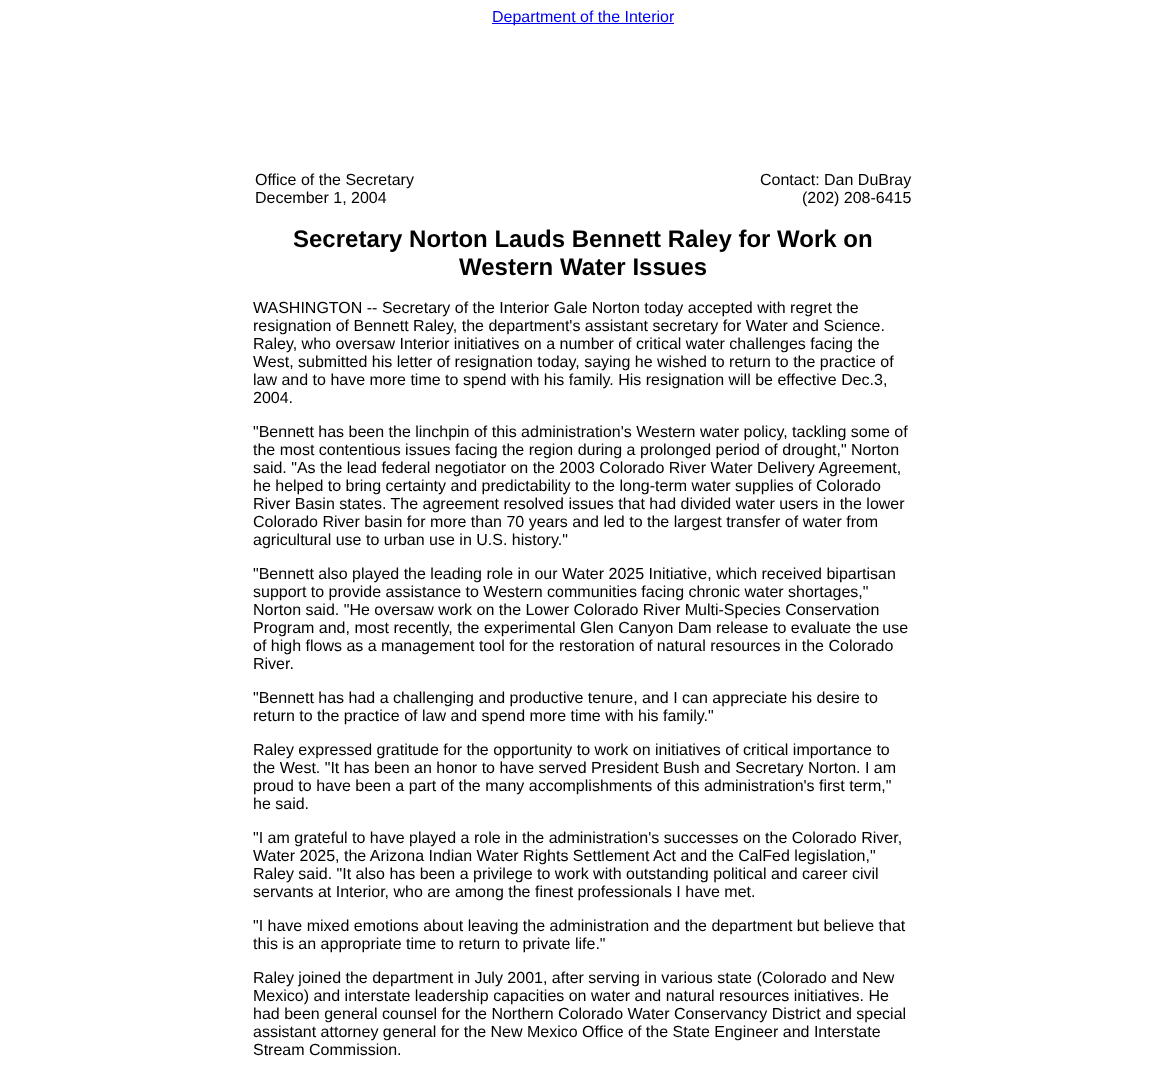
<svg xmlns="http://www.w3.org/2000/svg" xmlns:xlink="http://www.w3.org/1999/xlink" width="1166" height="1069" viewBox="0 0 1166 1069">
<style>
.cls-1{font:16px Liberation Sans;fill:#0000ee}
.cls-2{font:16px Liberation Sans;fill:#000000}
.cls-3{font:bold 24px Liberation Sans;fill:#000000}
</style>
<rect width="100%" height="100%" fill="#ffffff"/>
<rect fill="#0000ee" x="492" y="23" width="182" height="1"/>
<text class="cls-1" x="492" y="22">Department of the Interior</text>
<text class="cls-2" x="255" y="185">Office of the Secretary</text>
<text class="cls-2" x="760" y="185">Contact: Dan DuBray</text>
<text class="cls-2" x="255" y="203">December 1, 2004</text>
<text class="cls-2" x="802" y="203">(202) 208-6415</text>
<text class="cls-3" x="293" y="247">Secretary Norton Lauds Bennett Raley for Work on</text>
<text class="cls-3" x="459" y="275">Western Water Issues</text>
<text class="cls-2"><tspan x="253" y="313">WASHINGTON -- Secretary of the Interior Gale Norton today accepted with regret the</tspan><tspan x="253" y="331">resignation of Bennett Raley, the department's assistant secretary for Water and Science.</tspan><tspan x="253" y="349">Raley, who oversaw Interior initiatives on a number of critical water challenges facing the</tspan><tspan x="253" y="367">West, submitted his letter of resignation today, saying he wished to return to the practice of</tspan><tspan x="253" y="385">law and to have more time to spend with his family. His resignation will be effective Dec.3,</tspan><tspan x="253" y="403">2004.</tspan></text>
<text class="cls-2"><tspan x="253" y="437">"Bennett has been the linchpin of this administration's Western water policy, tackling some of</tspan><tspan x="253" y="455">the most contentious issues facing the region during a prolonged period of drought," Norton</tspan><tspan x="253" y="473">said. "As the lead federal negotiator on the 2003 Colorado River Water Delivery Agreement,</tspan><tspan x="253" y="491">he helped to bring certainty and predictability to the long-term water supplies of Colorado</tspan><tspan x="253" y="509">River Basin states. The agreement resolved issues that had divided water users in the lower</tspan><tspan x="253" y="527">Colorado River basin for more than 70 years and led to the largest transfer of water from</tspan><tspan x="253" y="545">agricultural use to urban use in U.S. history."</tspan></text>
<text class="cls-2"><tspan x="253" y="579">"Bennett also played the leading role in our Water 2025 Initiative, which received bipartisan</tspan><tspan x="253" y="597">support to provide assistance to Western communities facing chronic water shortages,"</tspan><tspan x="253" y="615">Norton said. "He oversaw work on the Lower Colorado River Multi-Species Conservation</tspan><tspan x="253" y="633">Program and, most recently, the experimental Glen Canyon Dam release to evaluate the use</tspan><tspan x="253" y="651">of high flows as a management tool for the restoration of natural resources in the Colorado</tspan><tspan x="253" y="669">River.</tspan></text>
<text class="cls-2"><tspan x="253" y="703">"Bennett has had a challenging and productive tenure, and I can appreciate his desire to</tspan><tspan x="253" y="721">return to the practice of law and spend more time with his family."</tspan></text>
<text class="cls-2"><tspan x="253" y="755">Raley expressed gratitude for the opportunity to work on initiatives of critical importance to</tspan><tspan x="253" y="773">the West. "It has been an honor to have served President Bush and Secretary Norton. I am</tspan><tspan x="253" y="791">proud to have been a part of the many accomplishments of this administration's first term,"</tspan><tspan x="253" y="809">he said.</tspan></text>
<text class="cls-2"><tspan x="253" y="843">"I am grateful to have played a role in the administration's successes on the Colorado River,</tspan><tspan x="253" y="861">Water 2025, the Arizona Indian Water Rights Settlement Act and the CalFed legislation,"</tspan><tspan x="253" y="879">Raley said. "It also has been a privilege to work with outstanding political and career civil</tspan><tspan x="253" y="897">servants at Interior, who are among the finest professionals I have met.</tspan></text>
<text class="cls-2"><tspan x="253" y="931">"I have mixed emotions about leaving the administration and the department but believe that</tspan><tspan x="253" y="949">this is an appropriate time to return to private life."</tspan></text>
<text class="cls-2"><tspan x="253" y="983">Raley joined the department in July 2001, after serving in various state (Colorado and New</tspan><tspan x="253" y="1001">Mexico) and interstate leadership capacities on water and natural resources initiatives. He</tspan><tspan x="253" y="1019">had been general counsel for the Northern Colorado Water Conservancy District and special</tspan><tspan x="253" y="1037">assistant attorney general for the New Mexico Office of the State Engineer and Interstate</tspan><tspan x="253" y="1055">Stream Commission.</tspan></text>
</svg>
